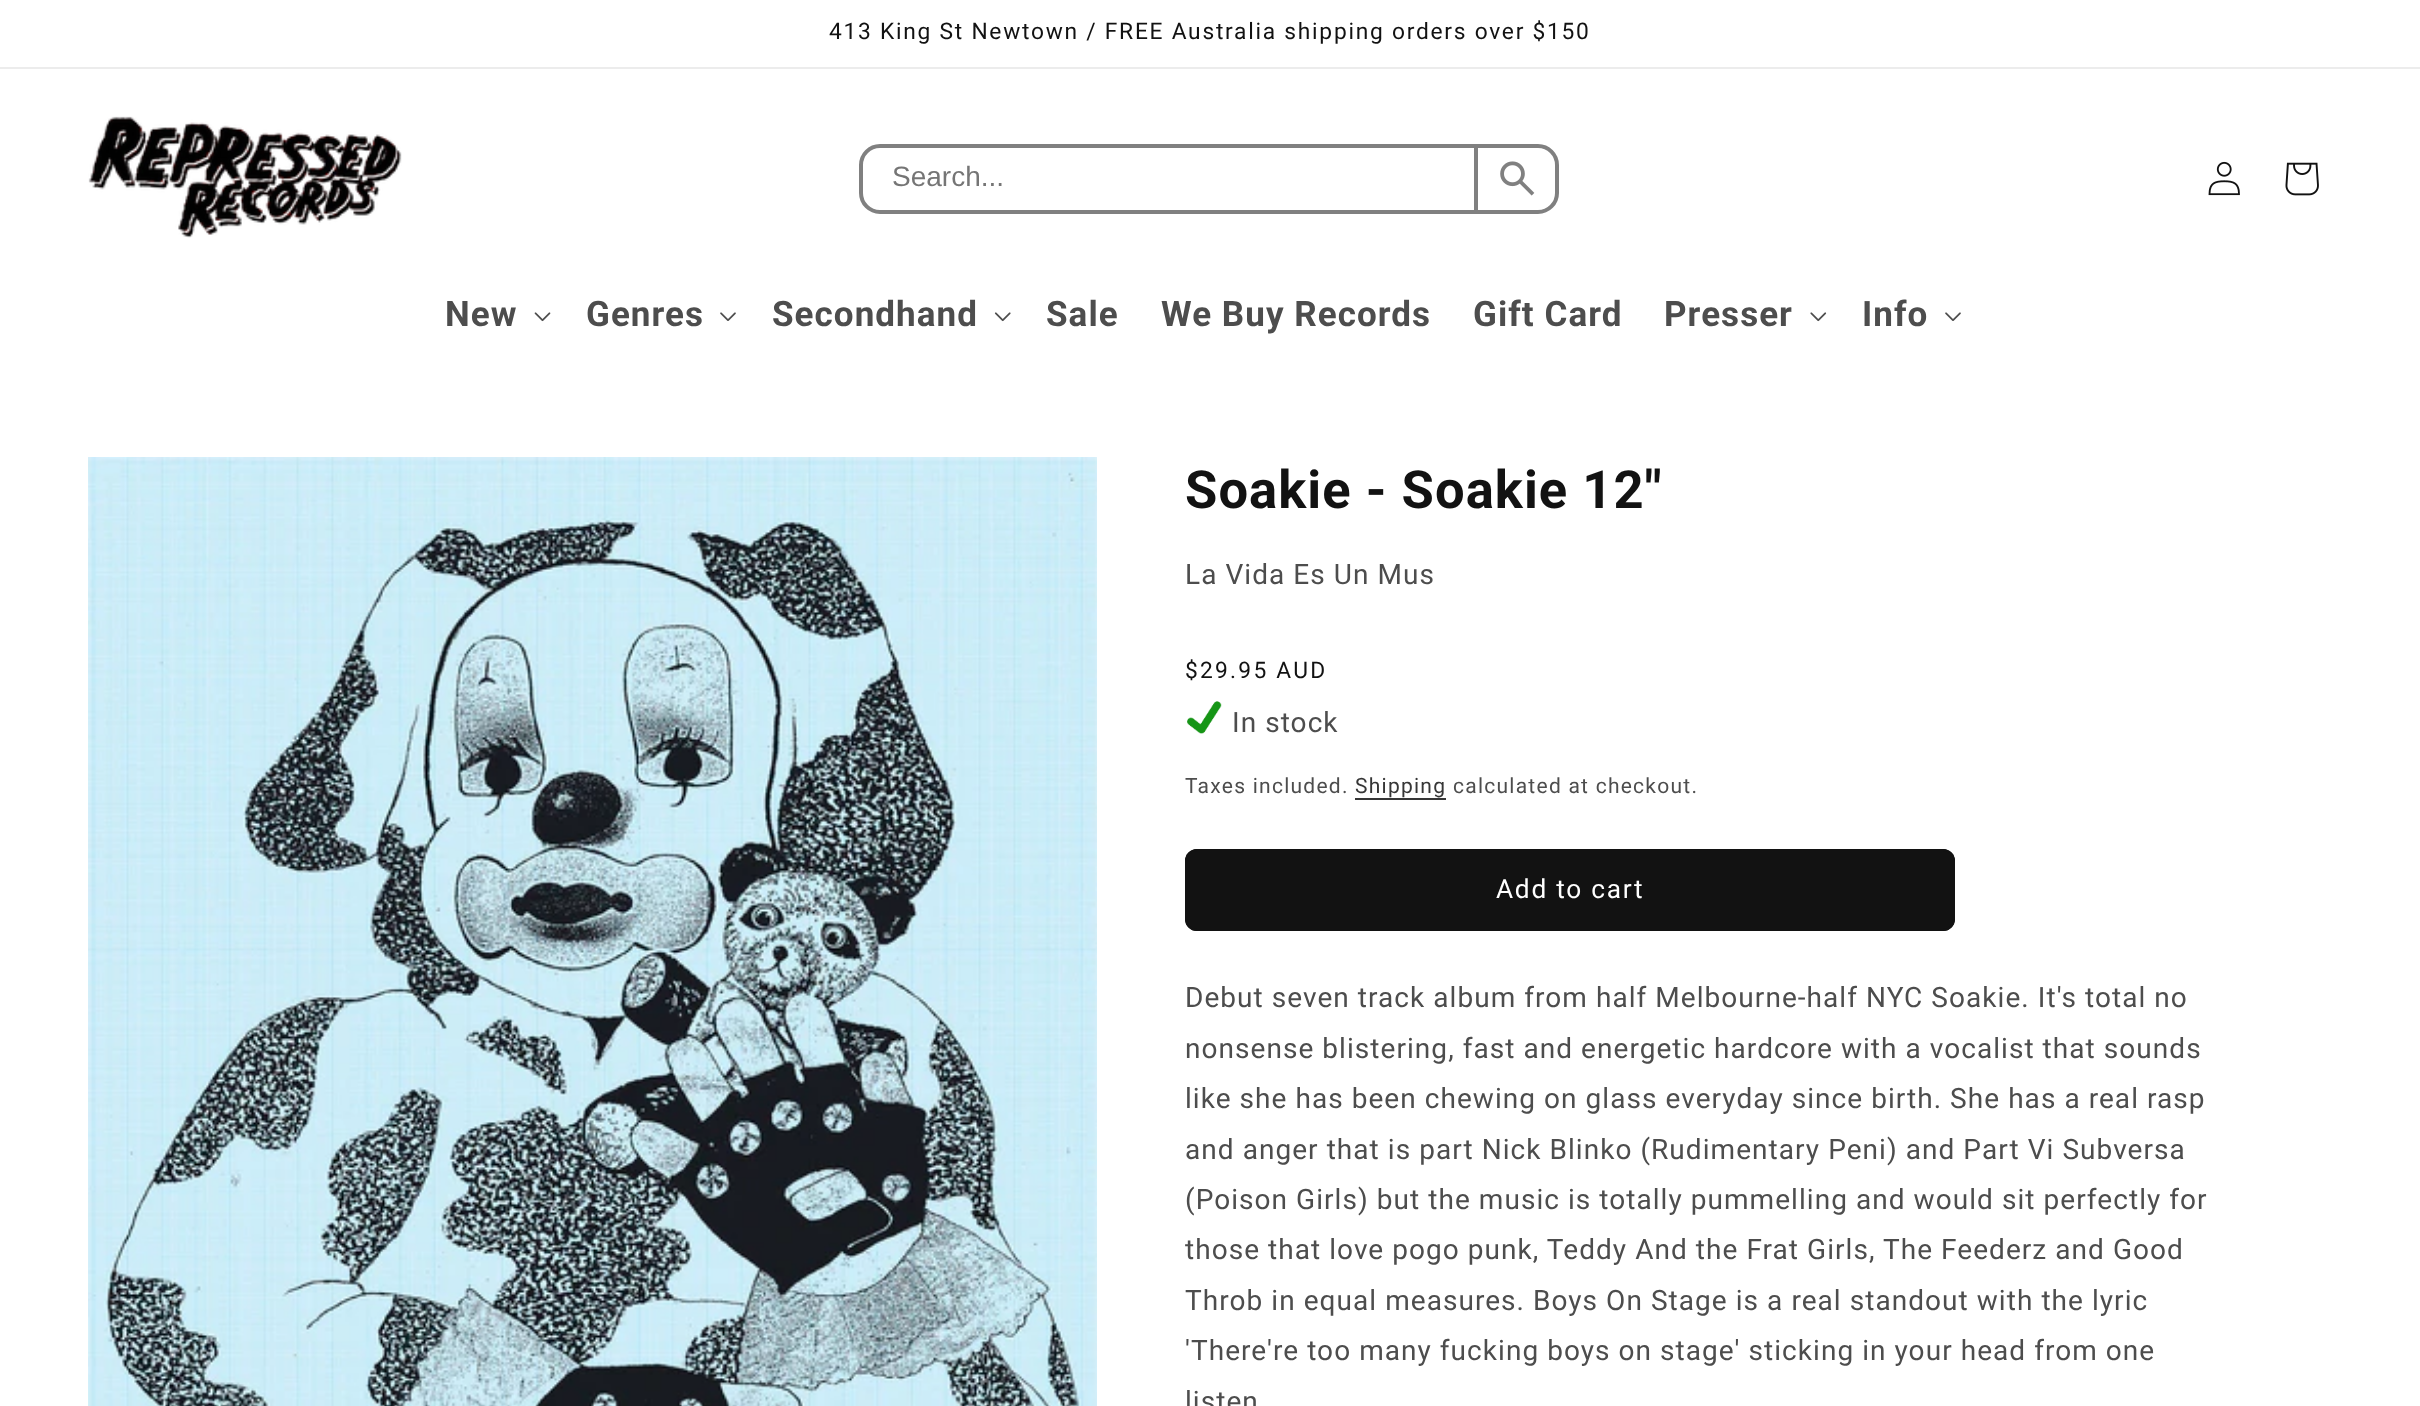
<svg xmlns="http://www.w3.org/2000/svg" xmlns:xlink="http://www.w3.org/1999/xlink" width="2420" height="1406" viewBox="0 0 2420 1406">
<style>
.cls-1{font:22.75px Roboto;letter-spacing:1.75px;fill:#121212}
.cls-2{font:28px Liberation Sans;fill:#757575}
.cls-3{font:bold 35px Roboto;letter-spacing:1.05px;fill:#4d4d4d}
.cls-4{font:bold 52.5px Roboto;letter-spacing:1.05px;fill:#121212}
.cls-5{font:28px Roboto;letter-spacing:1.05px;fill:#4d4d4d}
.cls-6{font:22.75px Roboto;letter-spacing:2.25px;fill:#121212}
.cls-7{font:21px Roboto;letter-spacing:1.25px;fill:#4d4d4d}
.cls-8{font:21px Roboto;letter-spacing:1.25px;fill:#363636}
.cls-9{font:26.25px Roboto;letter-spacing:1.75px;fill:#ffffff}
</style>
<rect width="100%" height="100%" fill="#ffffff"/>
<rect fill="#ececec" x="0" y="67" width="2420" height="2"/>
<image xlink:href="image0.png" x="88" y="116" width="314" height="122"/>
<rect fill="none" stroke="#808080" stroke-width="4" x="861" y="146" width="696" height="66" rx="19"/>
<rect fill="#808080" x="1474" y="147" width="4" height="63"/>
<image xlink:href="image1.png" x="1500" y="161" width="35" height="35"/>
<image xlink:href="image2.png" x="2208" y="161" width="32" height="35"/>
<image xlink:href="image3.png" x="2285" y="162" width="34" height="34"/>
<image xlink:href="image4.png" x="534" y="312" width="17" height="10"/>
<image xlink:href="image5.png" x="720" y="312" width="16" height="9"/>
<image xlink:href="image6.png" x="994" y="312" width="17" height="10"/>
<image xlink:href="image7.png" x="1810" y="312" width="17" height="10"/>
<image xlink:href="image5.png" x="1945" y="312" width="16" height="9"/>
<image xlink:href="image8.png" x="88" y="457" width="1009" height="949"/>
<image xlink:href="image9.png" x="1187" y="701" width="35" height="33"/>
<rect fill="#363636" x="1355" y="798" width="91" height="2"/>
<rect fill="#121212" x="1185" y="849" width="770" height="82" rx="12"/>
<rect fill="none" stroke="#121212" stroke-width="2" x="1186" y="850" width="768" height="80" rx="11"/>
<text class="cls-1" x="829" y="39">413 King St Newtown / FREE Australia shipping orders over $150</text>
<text class="cls-2" x="892" y="186">Search...</text>
<text class="cls-3" x="445" y="326">New</text>
<text class="cls-3" x="586" y="326">Genres</text>
<text class="cls-3" x="772" y="326">Secondhand</text>
<text class="cls-3" x="1046" y="326">Sale</text>
<text class="cls-3" x="1161" y="326">We Buy Records</text>
<text class="cls-3" x="1473" y="326">Gift Card</text>
<text class="cls-3" x="1664" y="326">Presser</text>
<text class="cls-3" x="1862" y="326">Info</text>
<text class="cls-4" x="1185" y="508">Soakie - Soakie 12"</text>
<text class="cls-5" x="1185" y="584">La Vida Es Un Mus</text>
<text class="cls-6" x="1185" y="678">$29.95 AUD</text>
<text class="cls-5" x="1232" y="732">In stock</text>
<text class="cls-7" x="1185" y="793">Taxes included.</text>
<text class="cls-8" x="1355" y="793">Shipping</text>
<text class="cls-7" x="1453" y="793">calculated at checkout.</text>
<text class="cls-9" x="1496" y="898">Add to cart</text>
<text class="cls-5"><tspan x="1185" y="1007">Debut seven track album from half Melbourne-half NYC Soakie. It's total no</tspan><tspan x="1185" y="1058">nonsense blistering, fast and energetic hardcore with a vocalist that sounds</tspan><tspan x="1185" y="1108">like she has been chewing on glass everyday since birth. She has a real rasp</tspan><tspan x="1185" y="1159">and anger that is part Nick Blinko (Rudimentary Peni) and Part Vi Subversa</tspan><tspan x="1185" y="1209">(Poison Girls) but the music is totally pummelling and would sit perfectly for</tspan><tspan x="1185" y="1259">those that love pogo punk, Teddy And the Frat Girls, The Feederz and Good</tspan><tspan x="1185" y="1310">Throb in equal measures. Boys On Stage is a real standout with the lyric</tspan><tspan x="1185" y="1360">'There're too many fucking boys on stage' sticking in your head from one</tspan><tspan x="1185" y="1411">listen</tspan></text>
</svg>
